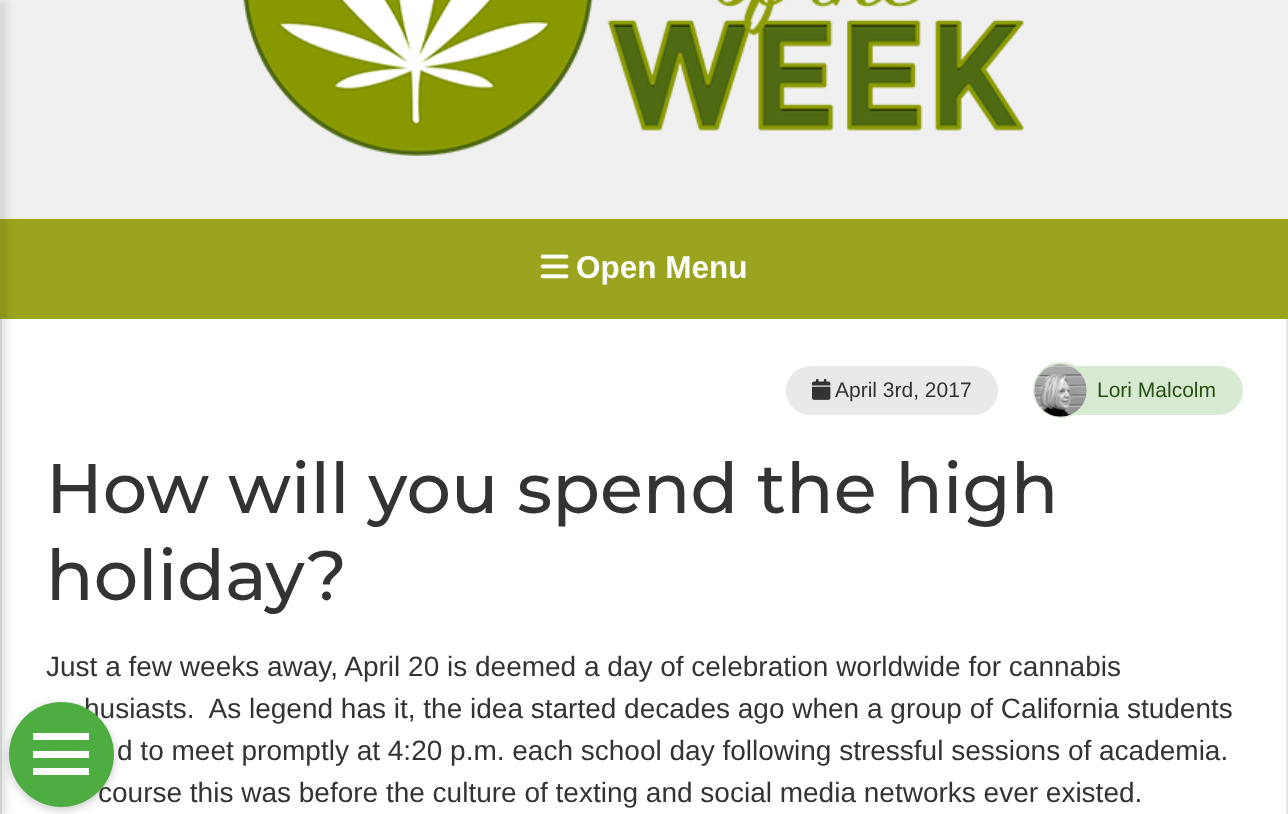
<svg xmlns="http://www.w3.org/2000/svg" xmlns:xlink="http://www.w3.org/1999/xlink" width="1288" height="814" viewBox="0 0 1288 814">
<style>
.cls-1{font:bold 31.5px Liberation Sans;fill:#ffffff}
.cls-2{font:21px Liberation Sans;fill:#333333}
.cls-3{font:21px Liberation Sans;fill:#274e13}
.cls-4{font:500 70px Montserrat;fill:#333333}
.cls-5{font:28px Liberation Sans;fill:#333333}
</style>
<rect width="100%" height="100%" fill="#f0f0f0"/>
<rect fill="#9ba41f" x="0" y="219" width="1288" height="100"/>
<rect fill="#ffffff" x="2" y="319" width="1284" height="495"/>
<rect fill="#e6e6e6" x="0" y="319" width="2" height="495"/>
<rect fill="#000000" fill-opacity="0.1" filter="blur(3.5px)" x="-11" y="0" width="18" height="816"/>
<image xlink:href="image0.png" x="243" y="0" width="781" height="156"/>
<image xlink:href="image1.png" x="540" y="254" width="29" height="25"/>
<rect fill="#e6e6e6" x="1286" y="319" width="2" height="495"/>
<rect fill="#e9e9e9" x="786" y="366" width="212" height="49" rx="24.5"/>
<image xlink:href="image2.png" x="812" y="378" width="19" height="22"/>
<path fill="#d9ead3" d="M1071 366H1218.5C1232 366 1243 377 1243 390.5C1243 404 1232 415 1218.5 415H1071Z"/>
<circle fill="none" stroke="#d9ead3" stroke-width="2" cx="1061" cy="390" r="27"/>
<image xlink:href="image3.png" x="1034" y="364" width="53" height="53"/>
<rect fill="#000000" fill-opacity="0.2" filter="blur(4.5px)" x="9" y="705" width="105" height="105" rx="52.5"/>
<text class="cls-1" x="576" y="278">Open Menu</text>
<text class="cls-2" x="835" y="397">April 3rd, 2017</text>
<text class="cls-3" x="1097" y="397">Lori Malcolm</text>
<text class="cls-4"><tspan x="46" y="513">How will you spend the high</tspan><tspan x="46" y="600">holiday?</tspan></text>
<text class="cls-5" x="46" y="676">Just a few weeks away, April 20 is deemed a day of celebration worldwide for cannabis</text>
<text class="cls-5" xml:space="preserve" x="84" y="718">husiasts.  As legend has it, the idea started decades ago when a group of California students</text>
<text class="cls-5" x="117" y="760">d to meet promptly at 4:20 p.m. each school day following stressful sessions of academia.</text>
<text class="cls-5" x="98" y="802">course this was before the culture of texting and social media networks ever existed.</text>
<circle fill="#4dad41" cx="61.5" cy="754.5" r="52.5"/>
<rect fill="#ffffff" x="33" y="733" width="56" height="7"/>
<rect fill="#ffffff" x="33" y="751" width="56" height="7"/>
<rect fill="#ffffff" x="33" y="768" width="56" height="7"/>
</svg>
